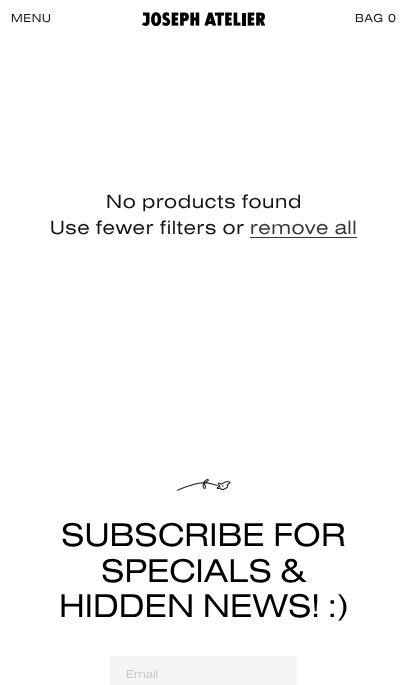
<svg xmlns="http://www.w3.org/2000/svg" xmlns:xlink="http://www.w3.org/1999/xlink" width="407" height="685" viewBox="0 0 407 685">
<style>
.cls-1{font:12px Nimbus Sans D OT;letter-spacing:0.6px;fill:#141414}
.cls-2{font:20px Nimbus Sans D OT;letter-spacing:0.6px;fill:#141414}
.cls-3{font:20px Nimbus Sans D OT;letter-spacing:0.6px;fill:#363636}
.cls-4{font:34px Nimbus Sans D OT;fill:#000000}
.cls-5{font:12px Nimbus Sans D OT;fill:#c6c6c7}
</style>
<rect width="100%" height="100%" fill="#ffffff"/>
<image xlink:href="image0.png" x="142" y="12" width="123" height="14"/>
<rect fill="#363636" x="250" y="237" width="107" height="1"/>
<image xlink:href="image1.png" x="176" y="479" width="55" height="12"/>
<rect fill="#f5f5f6" x="110" y="656" width="187" height="29"/>
<text class="cls-1" x="11" y="22">MENU</text>
<text class="cls-1" x="355" y="22">BAG</text>
<text class="cls-1" x="388" y="22">0</text>
<text class="cls-2" x="106" y="208">No products found</text>
<text class="cls-2" x="50" y="234">Use fewer filters or</text>
<text class="cls-3" x="250" y="234">remove all</text>
<text class="cls-4" x="61" y="546">SUBSCRIBE FOR</text>
<text class="cls-4" x="101" y="582">SPECIALS &amp;</text>
<text class="cls-4" x="59" y="617">HIDDEN NEWS! :)</text>
<text class="cls-5" x="126" y="678">Email</text>
</svg>
